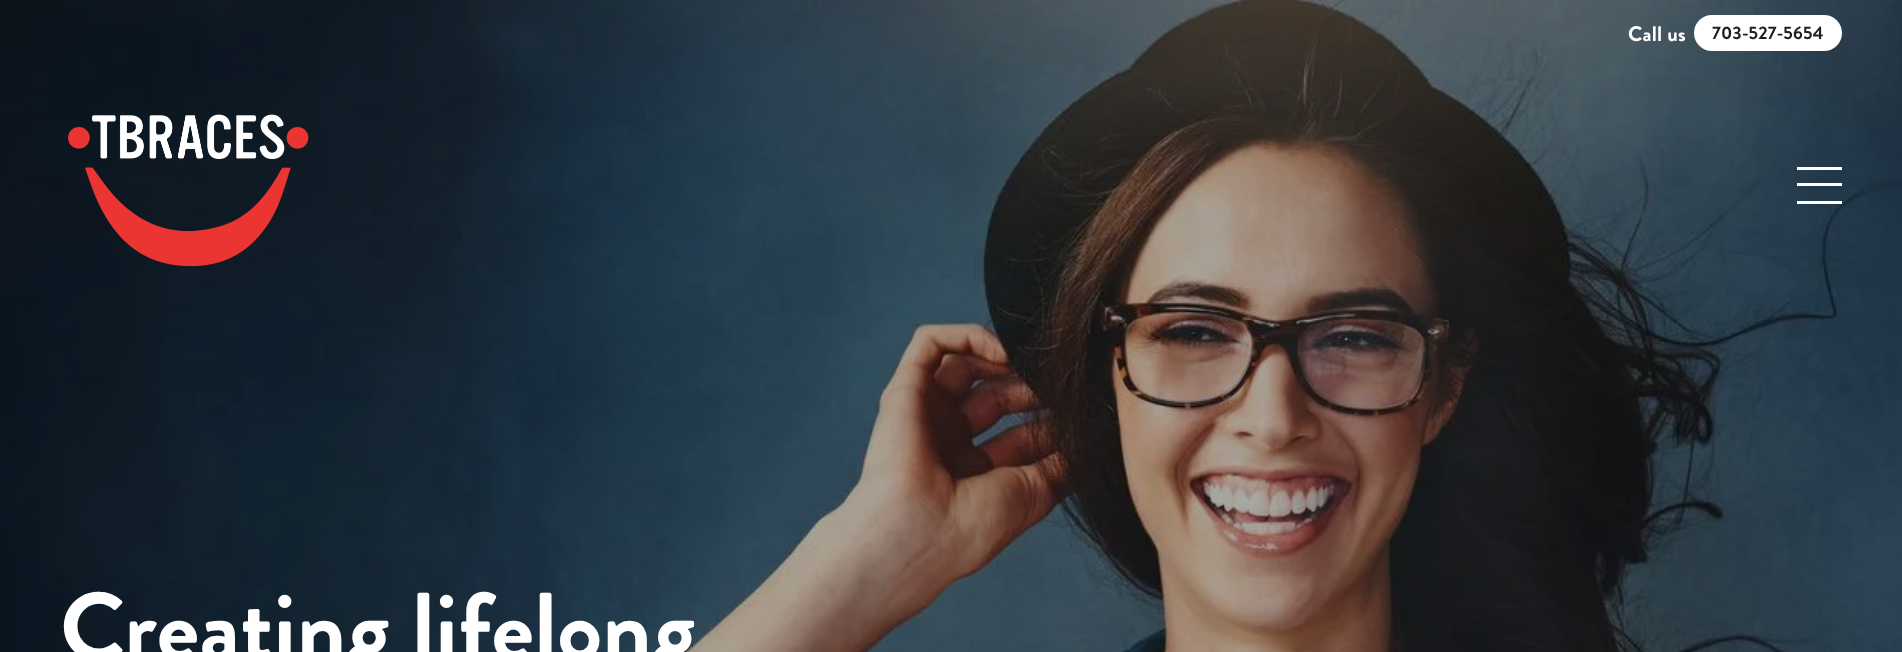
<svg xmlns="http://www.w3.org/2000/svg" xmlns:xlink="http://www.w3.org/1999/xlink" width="1902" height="652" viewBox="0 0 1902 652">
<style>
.cls-1{font:bold 21px Brandon Grotesque;letter-spacing:0.25px;fill:#ffffff}
.cls-2{font:bold 18px Brandon Grotesque;letter-spacing:0.25px;fill:#221f1e}
.cls-3{font:bold 96px Brandon Grotesque;fill:#ffffff}
</style>
<rect width="100%" height="100%" fill="#ffffff"/>
<image xlink:href="image1.png" x="0" y="0" width="1902" height="652"/>
<rect fill="#ffffff" x="1694" y="15" width="148" height="36" rx="18"/>
<image xlink:href="image0.png" x="67" y="114" width="242" height="153"/>
<rect fill="#ffffff" x="1797" y="167" width="45" height="3"/>
<rect fill="#ffffff" x="1797" y="183" width="45" height="3"/>
<rect fill="#ffffff" x="1797" y="201" width="45" height="3"/>
<text class="cls-1" x="1628" y="41">Call us</text>
<text class="cls-2" x="1712" y="39">703-527-5654</text>
<text class="cls-3" x="60" y="660">Creating lifelong</text>
</svg>
